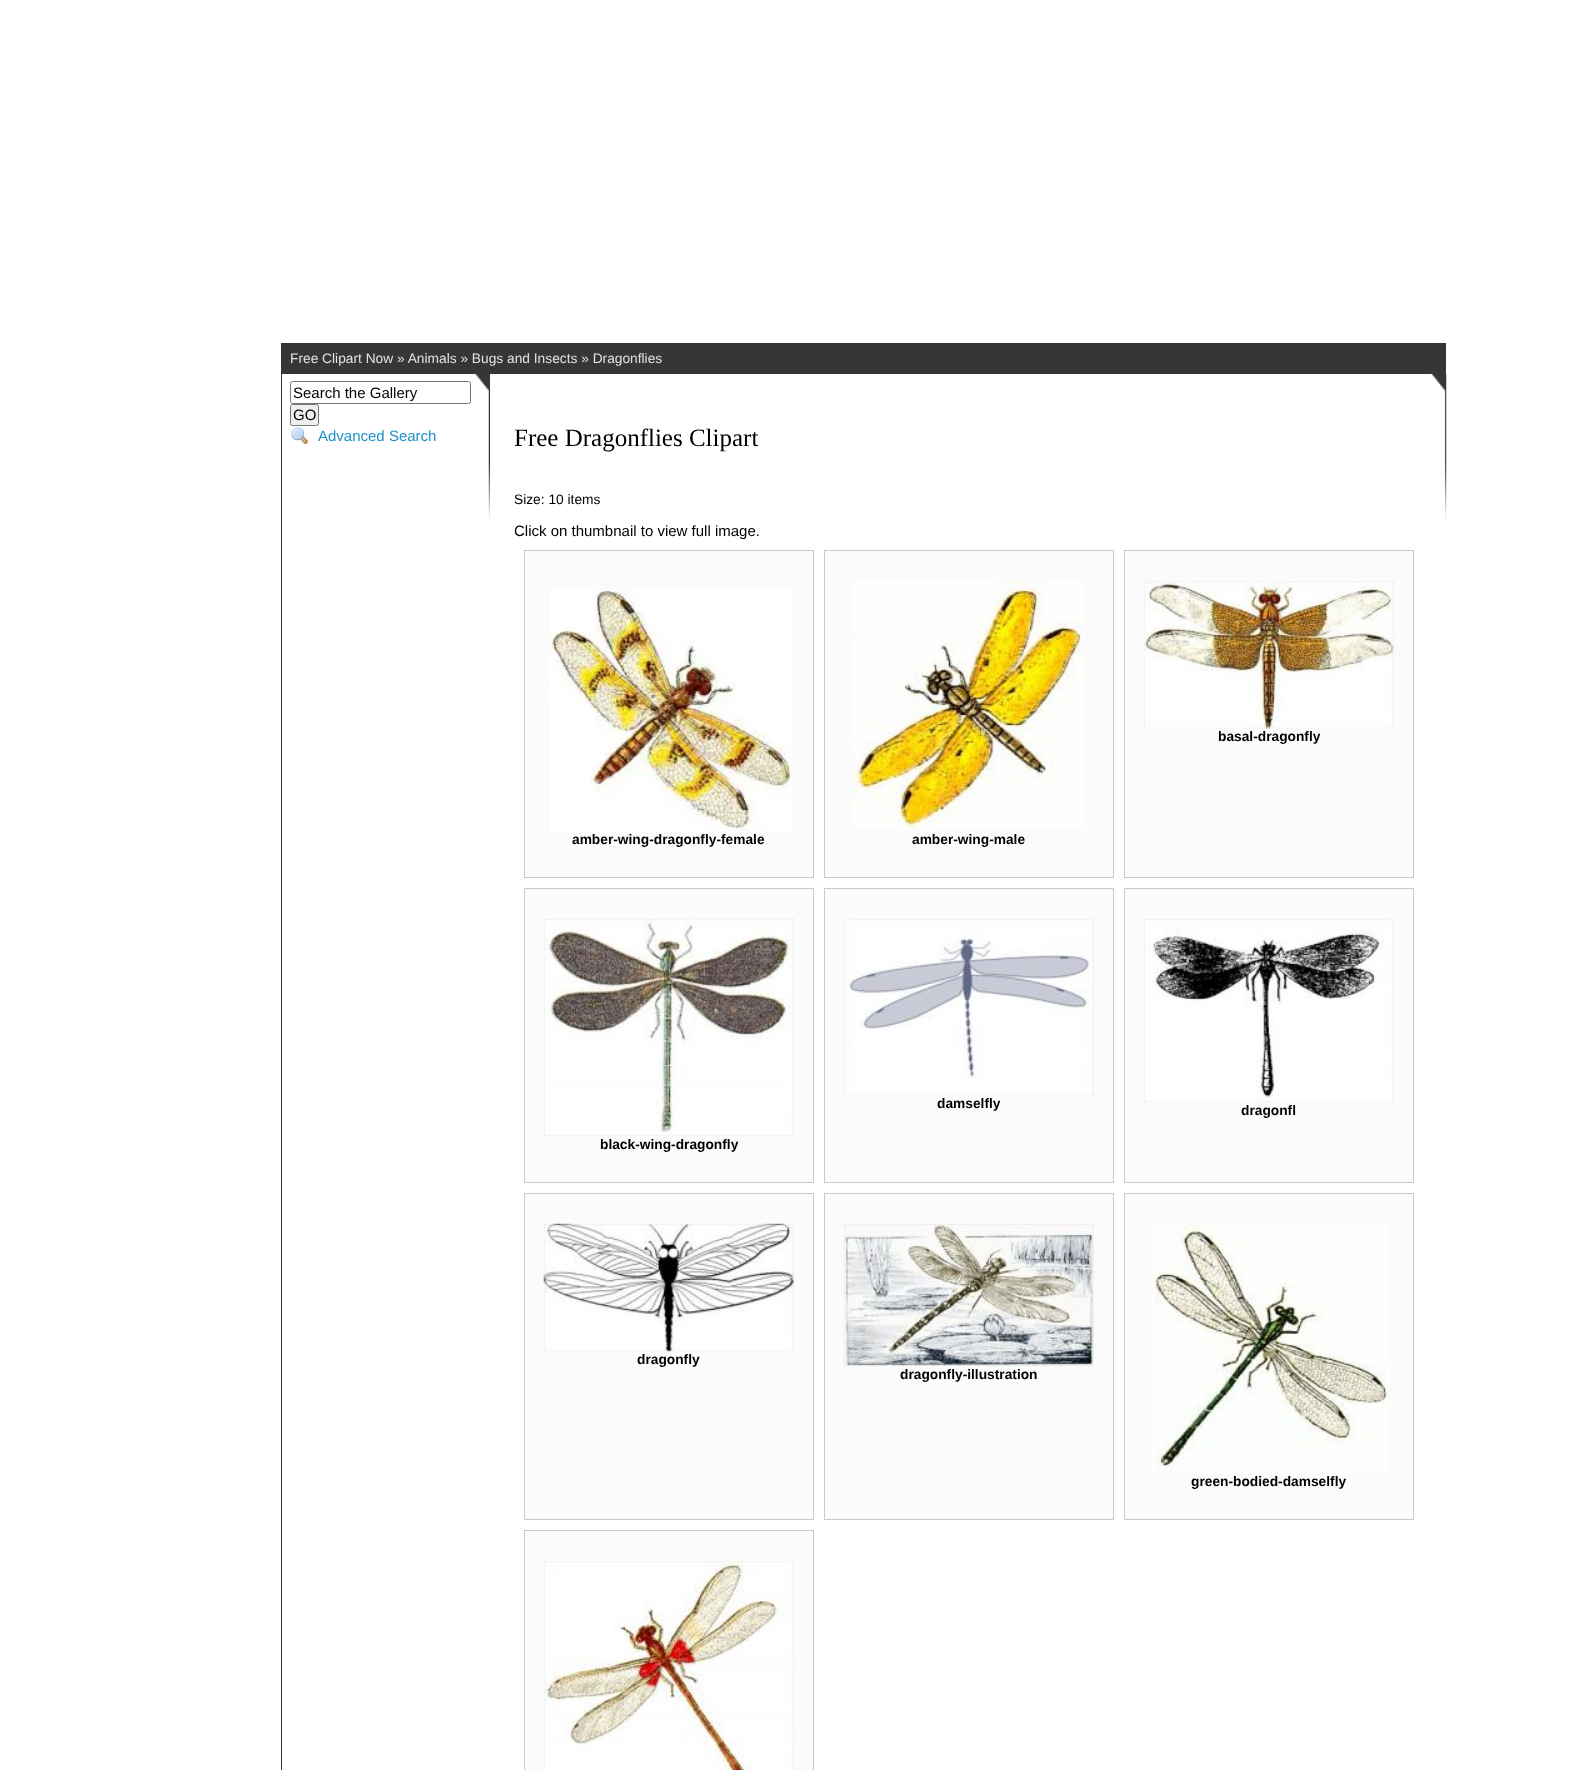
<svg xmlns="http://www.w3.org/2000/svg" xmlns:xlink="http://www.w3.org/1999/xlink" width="1587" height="1770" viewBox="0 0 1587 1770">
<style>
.cls-1{font:13.75px Liberation Sans;fill:#e1e1e1}
.cls-2{font:15px Liberation Sans;fill:#000000}
.cls-3{font:15px Liberation Sans;fill:#1c91c7}
.cls-4{font:25px Liberation Serif;fill:#000000}
.cls-5{font:13.75px Liberation Sans;fill:#000000}
.cls-6{font:bold 13.75px Liberation Sans;fill:#000000}
</style>
<rect width="100%" height="100%" fill="#ffffff"/>
<rect fill="#363636" x="281" y="343" width="1165" height="31"/>
<image xlink:href="image0.png" x="475" y="373" width="15" height="149"/>
<rect fill="#fcfcfc" x="490" y="374" width="1" height="1396"/>
<rect fill="#363636" x="281" y="374" width="1" height="1396"/>
<rect fill="none" stroke="#767676" x="290.5" y="381.5" width="180" height="22" rx="2"/>
<rect fill="#efefef" stroke="#767676" x="290.5" y="404.5" width="28" height="21" rx="2"/>
<image xlink:href="image1.png" x="291" y="427" width="17" height="18"/>
<image xlink:href="image2.png" x="1431" y="373" width="16" height="149"/>
<rect fill="#fbfbfb" stroke="#c9c9c9" x="1124.5" y="550.5" width="289" height="327"/>
<image xlink:href="image3.png" x="1143" y="581" width="251" height="148"/>
<rect fill="#fbfbfb" stroke="#c9c9c9" x="524.5" y="550.5" width="289" height="327"/>
<image xlink:href="image4.png" x="550" y="590" width="242" height="241"/>
<rect fill="#fbfbfb" stroke="#c9c9c9" x="824.5" y="550.5" width="289" height="327"/>
<image xlink:href="image5.png" x="853" y="581" width="232" height="248"/>
<rect fill="#fbfbfb" stroke="#c9c9c9" x="824.5" y="888.5" width="289" height="294"/>
<image xlink:href="image6.png" x="843" y="919" width="251" height="176"/>
<rect fill="#fbfbfb" stroke="#c9c9c9" x="1124.5" y="888.5" width="289" height="294"/>
<image xlink:href="image7.png" x="1144" y="919" width="250" height="184"/>
<rect fill="#fbfbfb" stroke="#c9c9c9" x="524.5" y="888.5" width="289" height="294"/>
<image xlink:href="image8.png" x="543" y="918" width="251" height="218"/>
<rect fill="#fbfbfb" stroke="#c9c9c9" x="524.5" y="1193.5" width="289" height="326"/>
<image xlink:href="image9.png" x="543" y="1223" width="251" height="129"/>
<rect fill="#fbfbfb" stroke="#c9c9c9" x="824.5" y="1193.5" width="289" height="326"/>
<image xlink:href="image10.png" x="843" y="1223" width="251" height="144"/>
<rect fill="#fbfbfb" stroke="#c9c9c9" x="1124.5" y="1193.5" width="289" height="326"/>
<image xlink:href="image11.png" x="1152" y="1224" width="238" height="250"/>
<rect fill="#fbfbfb" stroke="#c9c9c9" x="524.5" y="1530.5" width="289" height="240"/>
<image xlink:href="image12.png" x="543" y="1561" width="251" height="209"/>
<text class="cls-1" x="290" y="363">Free Clipart Now » Animals » Bugs and Insects » Dragonflies</text>
<text class="cls-2"><tspan x="293" y="398">Search the Gallery</tspan><tspan x="293" y="420">GO</tspan></text>
<text class="cls-3" x="318" y="441">Advanced Search</text>
<text class="cls-4" x="514" y="446">Free Dragonflies Clipart</text>
<text class="cls-5" x="514" y="504">Size: 10 items</text>
<text class="cls-2" x="514" y="536">Click on thumbnail to view full image.</text>
<text class="cls-6" x="1218" y="741">basal-dragonfly</text>
<text class="cls-6" x="572" y="844">amber-wing-dragonfly-female</text>
<text class="cls-6" x="912" y="844">amber-wing-male</text>
<text class="cls-6" x="937" y="1108">damselfly</text>
<text class="cls-6" x="1241" y="1115">dragonfl</text>
<text class="cls-6" x="600" y="1149">black-wing-dragonfly</text>
<text class="cls-6" x="637" y="1364">dragonfly</text>
<text class="cls-6" x="900" y="1379">dragonfly-illustration</text>
<text class="cls-6" x="1191" y="1486">green-bodied-damselfly</text>
</svg>
